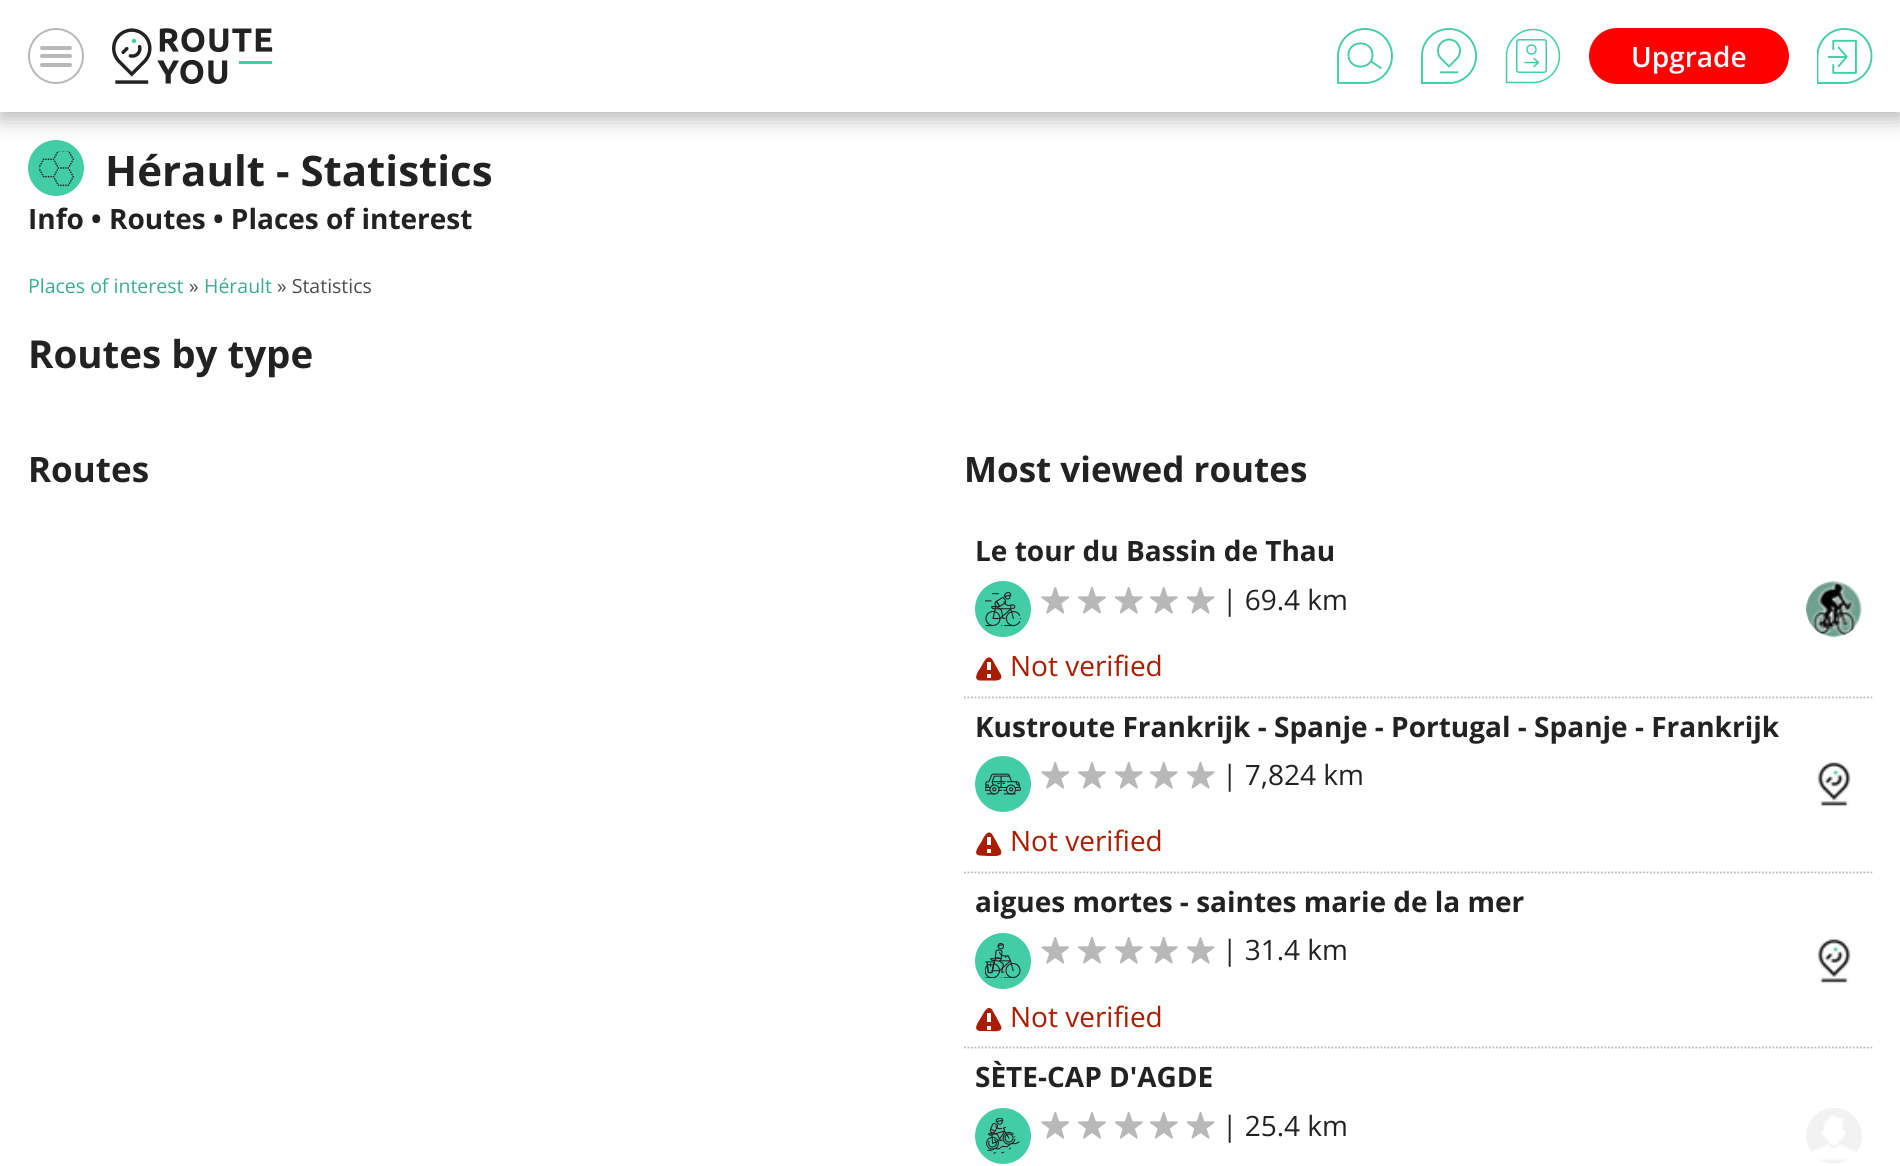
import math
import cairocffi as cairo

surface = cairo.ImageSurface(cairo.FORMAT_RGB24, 1900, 1166)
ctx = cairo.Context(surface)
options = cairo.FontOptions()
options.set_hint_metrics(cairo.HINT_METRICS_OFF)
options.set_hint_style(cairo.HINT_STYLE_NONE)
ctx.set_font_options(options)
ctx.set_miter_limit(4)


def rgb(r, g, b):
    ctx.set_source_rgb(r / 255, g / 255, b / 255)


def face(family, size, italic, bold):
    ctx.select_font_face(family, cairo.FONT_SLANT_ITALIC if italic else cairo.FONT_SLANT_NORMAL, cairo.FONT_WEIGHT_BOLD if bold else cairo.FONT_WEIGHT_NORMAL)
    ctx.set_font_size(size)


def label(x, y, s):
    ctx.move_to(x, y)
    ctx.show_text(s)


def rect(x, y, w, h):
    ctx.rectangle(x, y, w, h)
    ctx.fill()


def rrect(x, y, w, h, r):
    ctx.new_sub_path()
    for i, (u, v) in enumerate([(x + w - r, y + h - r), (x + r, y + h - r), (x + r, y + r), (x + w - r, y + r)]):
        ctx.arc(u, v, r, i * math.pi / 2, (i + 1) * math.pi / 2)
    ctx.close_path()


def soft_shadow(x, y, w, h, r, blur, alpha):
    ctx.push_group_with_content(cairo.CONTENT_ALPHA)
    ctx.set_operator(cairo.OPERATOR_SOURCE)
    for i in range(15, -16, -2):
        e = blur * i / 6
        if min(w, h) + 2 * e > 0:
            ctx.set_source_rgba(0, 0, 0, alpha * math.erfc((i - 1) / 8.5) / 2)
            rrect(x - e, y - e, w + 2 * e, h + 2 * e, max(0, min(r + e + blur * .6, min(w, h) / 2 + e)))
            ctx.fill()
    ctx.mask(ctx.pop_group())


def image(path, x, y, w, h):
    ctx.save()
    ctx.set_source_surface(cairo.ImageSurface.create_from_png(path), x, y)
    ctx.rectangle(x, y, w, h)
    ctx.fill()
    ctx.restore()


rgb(255, 255, 255)
ctx.paint()
rgb(66, 205, 167)
ctx.arc(56, 168, 28, 0, 2 * math.pi)
ctx.fill()
image('image3.png', 39, 151, 35, 36)
ctx.save()
ctx.rectangle(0, 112, 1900, 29)
ctx.clip()
rgb(184, 184, 184)
soft_shadow(0, 7, 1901, 112, 0, 10.5, 1)
ctx.restore()
ctx.arc(56, 56, 27, 0, 2 * math.pi)
rgb(184, 184, 184)
ctx.stroke()
rrect(40, 46, 32, 4, 2)
ctx.fill()
rrect(40, 54, 32, 4, 2)
ctx.fill()
rrect(40, 63, 32, 4, 2)
ctx.fill()
image('image0.png', 112, 28, 161, 56)
ctx.new_path()
ctx.move_to(1372.5, 55)
ctx.curve_to(1372.5, 70.5, 1348.5, 70.5, 1348.5, 55)
ctx.curve_to(1348.5, 39.5, 1372.5, 39.5, 1372.5, 55)
ctx.close_path()
ctx.move_to(1370.5, 61)
ctx.line_to(1381.5, 68.5)
ctx.move_to(1365, 83)
ctx.line_to(1338, 83)
ctx.line_to(1338, 56)
ctx.curve_to(1338, 41, 1350, 29, 1365, 29)
ctx.curve_to(1380, 29, 1392, 41, 1392, 56)
ctx.curve_to(1392, 71, 1380, 83, 1365, 83)
ctx.close_path()
rgb(66, 205, 167)
ctx.set_line_width(1.9)
ctx.stroke()
image('image1.png', 1421, 28, 56, 56)
ctx.new_path()
ctx.move_to(1533, 82.5)
ctx.line_to(1506.5, 82.5)
ctx.line_to(1506.5, 56)
ctx.curve_to(1506.5, 41.5, 1518.5, 29.5, 1533, 29.5)
ctx.curve_to(1547.5, 29.5, 1559.5, 41.5, 1559.5, 56)
ctx.curve_to(1559.5, 70.5, 1547.5, 82.5, 1533, 82.5)
ctx.close_path()
ctx.set_line_width(1.5)
ctx.stroke()
ctx.arc(1531.5, 49.5, 4.5, 0, 2 * math.pi)
ctx.stroke()
rrect(1516.75, 39.75, 29.5, 32.5, 2.25)
ctx.stroke()
ctx.new_path()
ctx.move_to(1525, 62.5)
ctx.line_to(1538.5, 62.5)
ctx.move_to(1534, 58.5)
ctx.line_to(1538.5, 62.5)
ctx.line_to(1534, 66.5)
ctx.set_line_cap(cairo.LINE_CAP_ROUND)
ctx.set_line_join(cairo.LINE_JOIN_ROUND)
ctx.stroke()
rgb(255, 0, 0)
rrect(1589, 28, 200, 56, 28)
ctx.fill()
face('Open Sans SemiBold', 28, 0, 0)
rgb(255, 255, 255)
label(1631, 67, 'Upgrade')
image('image2.png', 1817, 28, 56, 56)
face('Open Sans', 42, 0, 1)
rgb(34, 34, 34)
label(105, 186, 'Hérault - Statistics')
face('Open Sans', 28, 0, 1)
label(28, 229, 'Info • Routes • Places of interest')
face('Open Sans', 19.5, 0, 0)
rgb(56, 174, 142)
label(28, 293, 'Places of interest')
rgb(77, 77, 77)
label(189, 293, '»')
rgb(56, 174, 142)
label(204, 293, 'Hérault')
rgb(77, 77, 77)
label(277, 293, '» Statistics')
face('Open Sans', 38.5, 0, 1)
rgb(34, 34, 34)
label(28, 368, 'Routes by type')
face('Open Sans', 35, 0, 1)
label(28, 482, 'Routes')
label(964, 482, 'Most viewed routes')
ctx.new_path()
ctx.move_to(964, 697.5)
ctx.line_to(1872.5, 697.5)
rgb(184, 184, 184)
ctx.set_line_width(1.8)
ctx.set_line_cap(cairo.LINE_CAP_BUTT)
ctx.set_line_join(cairo.LINE_JOIN_MITER)
ctx.set_dash([1.75, 1.75])
ctx.stroke()
face('Open Sans', 28, 0, 1)
rgb(34, 34, 34)
label(975, 561, 'Le tour du Bassin de Thau')
rgb(66, 205, 167)
ctx.new_path()
ctx.arc(1003, 609, 28, 0, 2 * math.pi)
ctx.fill()
image('image4.png', 985, 592, 36, 35)
image('image5.png', 1041, 587, 28, 27)
image('image6.png', 1078, 587, 28, 27)
image('image7.png', 1115, 587, 28, 27)
image('image7.png', 1150, 587, 28, 27)
image('image8.png', 1187, 587, 28, 27)
face('Open Sans', 28, 0, 0)
rgb(34, 34, 34)
label(1222, 610, '| 69.4 km')
image('image9.png', 1806, 581, 56, 56)
rgb(170, 28, 0)
ctx.new_path()
ctx.move_to(981, 667)
ctx.curve_to(983, 663.5, 987, 653.5, 992, 659)
ctx.line_to(996.5, 667)
ctx.line_to(988.5, 680.5)
ctx.close_path()
ctx.fill()
ctx.new_path()
ctx.move_to(988.5, 680.5)
ctx.line_to(979.5, 680.5)
ctx.curve_to(972, 679, 979, 670, 981, 667)
ctx.line_to(996.5, 667)
ctx.close_path()
ctx.fill()
ctx.new_path()
ctx.move_to(996.5, 667)
ctx.line_to(1001, 675)
ctx.curve_to(1003.5, 682, 992.5, 680.5, 988.5, 680.5)
ctx.line_to(981, 667)
ctx.close_path()
ctx.fill()
rgb(255, 255, 255)
rect(987, 662, 4, 8)
rect(987, 674, 4, 4)
rgb(170, 28, 0)
label(1010, 676, 'Not verified')
ctx.new_path()
ctx.move_to(964, 872.5)
ctx.line_to(1872.5, 872.5)
rgb(184, 184, 184)
ctx.stroke()
face('Open Sans', 28, 0, 1)
rgb(34, 34, 34)
label(975, 737, 'Kustroute Frankrijk - Spanje - Portugal - Spanje - Frankrijk')
rgb(66, 205, 167)
ctx.new_path()
ctx.arc(1003, 784, 28, 0, 2 * math.pi)
ctx.fill()
image('image10.png', 985, 773, 36, 22)
image('image5.png', 1041, 762, 28, 27)
image('image6.png', 1078, 762, 28, 27)
image('image7.png', 1115, 762, 28, 27)
image('image7.png', 1150, 762, 28, 27)
image('image8.png', 1187, 762, 28, 27)
face('Open Sans', 28, 0, 0)
rgb(34, 34, 34)
label(1222, 785, '| 7,824 km')
image('image11.png', 1817, 761, 34, 46)
rgb(170, 28, 0)
ctx.new_path()
ctx.move_to(981, 842.5)
ctx.curve_to(983, 839, 987, 828.5, 992, 834)
ctx.line_to(996.5, 842)
ctx.line_to(988.5, 856)
ctx.close_path()
ctx.fill()
ctx.new_path()
ctx.move_to(988.5, 856)
ctx.line_to(979.5, 855.5)
ctx.curve_to(972, 854.5, 979, 845.5, 981, 842.5)
ctx.line_to(996.5, 842)
ctx.close_path()
ctx.fill()
ctx.save()
ctx.rectangle(975, 831, 28, 25)
ctx.clip()
ctx.new_path()
ctx.move_to(996.5, 842)
ctx.line_to(1001, 850.5)
ctx.curve_to(1003.5, 857.5, 992.5, 856, 988.5, 856)
ctx.line_to(981, 842.5)
ctx.close_path()
ctx.fill()
ctx.restore()
rgb(255, 255, 255)
rect(987, 837, 4, 8)
rect(987, 849, 4, 4)
rgb(170, 28, 0)
label(1010, 851, 'Not verified')
ctx.new_path()
ctx.move_to(964, 1047.5)
ctx.line_to(1872.5, 1047.5)
rgb(184, 184, 184)
ctx.stroke()
face('Open Sans', 28, 0, 1)
rgb(34, 34, 34)
label(975, 912, 'aigues mortes - saintes marie de la mer')
rgb(66, 205, 167)
ctx.new_path()
ctx.arc(1003, 961, 28, 0, 2 * math.pi)
ctx.fill()
image('image12.png', 985, 943, 36, 35)
image('image5.png', 1041, 937, 28, 27)
image('image6.png', 1078, 937, 28, 27)
image('image7.png', 1115, 937, 28, 27)
image('image7.png', 1150, 937, 28, 27)
image('image8.png', 1187, 937, 28, 27)
face('Open Sans', 28, 0, 0)
rgb(34, 34, 34)
label(1222, 960, '| 31.4 km')
image('image13.png', 1817, 938, 34, 46)
rgb(170, 28, 0)
ctx.new_path()
ctx.move_to(981, 1017.5)
ctx.curve_to(983, 1014.5, 987, 1004, 992, 1009.5)
ctx.line_to(996.5, 1017.5)
ctx.line_to(988.5, 1031)
ctx.close_path()
ctx.fill()
ctx.new_path()
ctx.move_to(988.5, 1031)
ctx.line_to(979.5, 1031)
ctx.curve_to(972, 1029.5, 979, 1021, 981, 1017.5)
ctx.line_to(996.5, 1017.5)
ctx.close_path()
ctx.fill()
ctx.new_path()
ctx.move_to(996.5, 1017.5)
ctx.line_to(1001, 1026)
ctx.curve_to(1003.5, 1033, 992.5, 1031, 988.5, 1031)
ctx.line_to(981, 1017.5)
ctx.close_path()
ctx.fill()
rgb(255, 255, 255)
rect(987, 1013, 4, 9)
rect(987, 1026, 4, 4)
rgb(170, 28, 0)
label(1010, 1027, 'Not verified')
face('Open Sans', 28, 0, 1)
rgb(34, 34, 34)
label(975, 1087, 'SÈTE-CAP D\'AGDE')
rgb(66, 205, 167)
ctx.new_path()
ctx.arc(1003, 1136, 28, 0, 2 * math.pi)
ctx.fill()
image('image14.png', 986, 1118, 34, 36)
image('image5.png', 1041, 1112, 28, 27)
image('image6.png', 1078, 1112, 28, 27)
image('image7.png', 1115, 1112, 28, 27)
image('image7.png', 1150, 1112, 28, 27)
image('image8.png', 1187, 1112, 28, 27)
face('Open Sans', 28, 0, 0)
rgb(34, 34, 34)
label(1222, 1136, '| 25.4 km')
image('image15.png', 1806, 1108, 56, 56)
surface.write_to_png('render.png')
